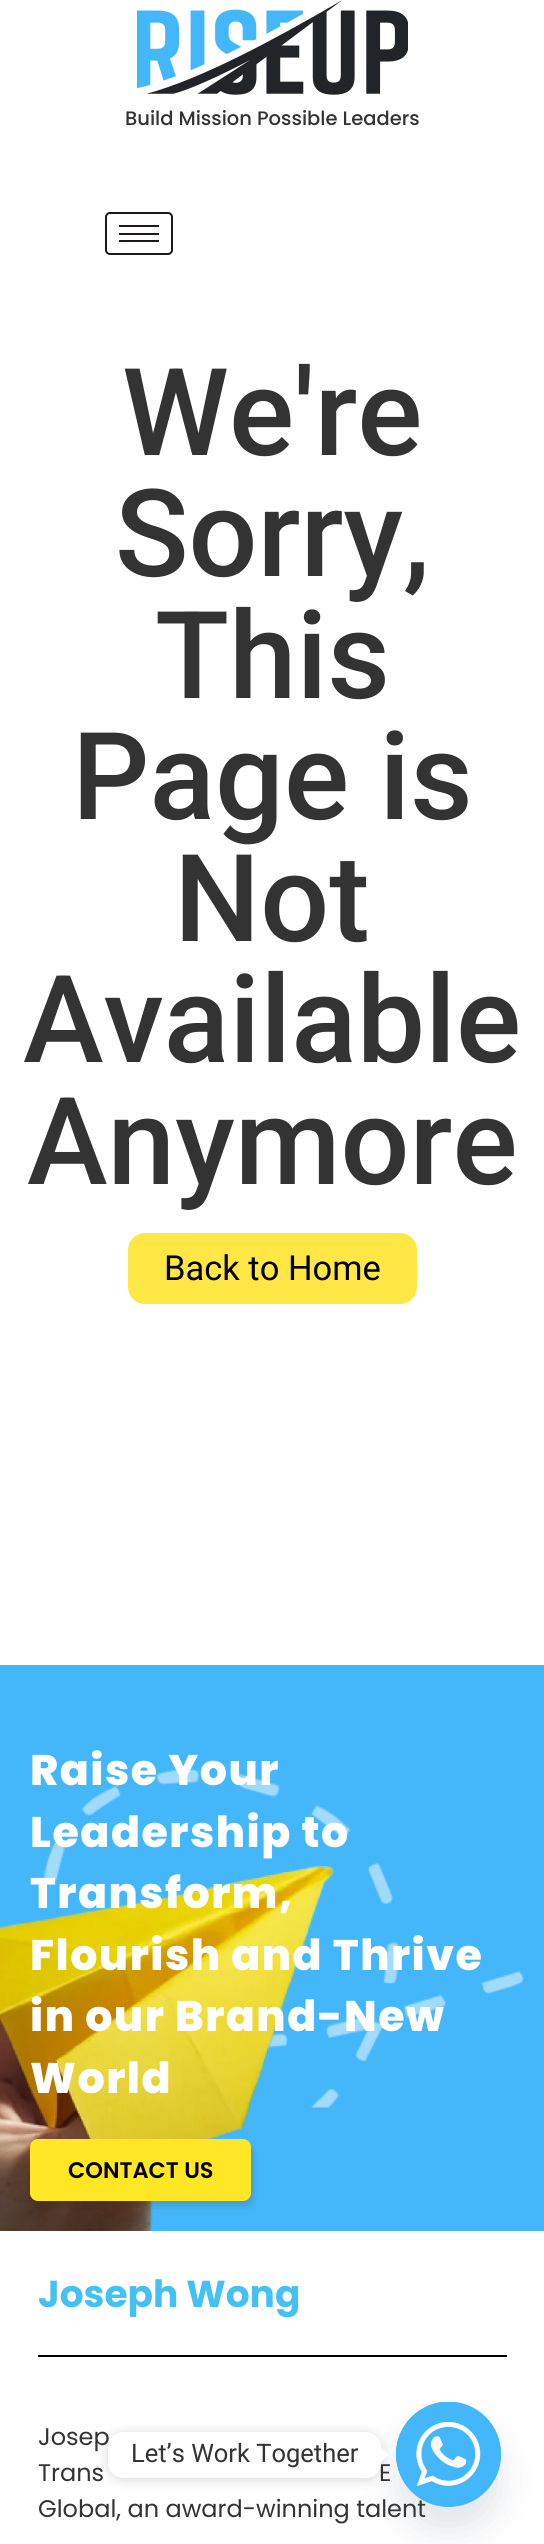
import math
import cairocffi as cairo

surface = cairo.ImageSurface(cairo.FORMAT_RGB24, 544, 2544)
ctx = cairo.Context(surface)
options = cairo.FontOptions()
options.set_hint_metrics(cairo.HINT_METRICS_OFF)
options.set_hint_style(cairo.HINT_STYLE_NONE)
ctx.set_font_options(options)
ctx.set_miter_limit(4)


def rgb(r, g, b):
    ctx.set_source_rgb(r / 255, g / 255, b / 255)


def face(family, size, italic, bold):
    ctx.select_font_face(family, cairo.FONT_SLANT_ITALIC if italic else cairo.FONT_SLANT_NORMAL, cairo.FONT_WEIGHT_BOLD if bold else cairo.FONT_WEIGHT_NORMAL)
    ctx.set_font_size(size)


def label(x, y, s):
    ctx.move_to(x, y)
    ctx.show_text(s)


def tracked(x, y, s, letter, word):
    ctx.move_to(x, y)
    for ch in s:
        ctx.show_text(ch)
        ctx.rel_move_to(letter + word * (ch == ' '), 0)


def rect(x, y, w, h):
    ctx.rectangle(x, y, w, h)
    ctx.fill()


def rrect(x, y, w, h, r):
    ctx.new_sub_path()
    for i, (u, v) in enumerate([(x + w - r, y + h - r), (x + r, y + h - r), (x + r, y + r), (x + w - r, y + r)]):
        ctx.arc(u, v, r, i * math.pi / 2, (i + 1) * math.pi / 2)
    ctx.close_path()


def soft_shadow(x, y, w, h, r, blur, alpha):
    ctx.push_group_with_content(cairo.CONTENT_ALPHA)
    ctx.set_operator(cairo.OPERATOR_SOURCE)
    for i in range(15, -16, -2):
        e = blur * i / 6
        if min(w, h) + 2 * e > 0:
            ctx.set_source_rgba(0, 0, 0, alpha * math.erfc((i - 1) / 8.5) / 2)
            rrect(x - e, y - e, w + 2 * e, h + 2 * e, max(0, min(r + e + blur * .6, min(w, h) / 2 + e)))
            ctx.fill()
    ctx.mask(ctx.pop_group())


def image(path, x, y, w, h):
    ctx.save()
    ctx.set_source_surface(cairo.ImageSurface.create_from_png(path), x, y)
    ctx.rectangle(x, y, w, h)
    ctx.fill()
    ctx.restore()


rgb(255, 255, 255)
ctx.paint()
image('image0.png', 137, 0, 271, 95)
face('Poppins Medium', 19.5, 0, 0)
rgb(51, 51, 51)
label(125, 125, 'Build Mission Possible Leaders')
rrect(106, 213, 66, 41, 4)
rgb(29, 24, 26)
ctx.stroke()
rect(119, 225, 40, 2)
rect(119, 233, 40, 2)
rect(119, 240, 40, 2)
face('Roboto Medium', 121.5, 0, 0)
rgb(51, 51, 51)
label(122, 455, 'We\'re')
label(115, 576, 'Sorry,')
label(155, 698, 'This')
label(72, 819, 'Page is')
label(174, 941, 'Not')
label(23, 1062, 'Available')
label(27, 1184, 'Anymore')
rgb(255, 232, 69)
rrect(128, 1233, 289, 71, 17)
ctx.fill()
face('Roboto', 34.5, 0, 0)
rgb(2, 1, 1)
label(164, 1280, 'Back to Home')
rgb(68, 183, 251)
rect(0, 1665, 544, 566)
image('image1.png', 43, 1768, 481, 340)
face('Poppins ExtraBold', 42.75, 0, 0)
rgb(255, 255, 255)
tracked(30, 1785, 'Raise Your', 1.5, 0)
tracked(30, 1847, 'Leadership to', 1.5, 0)
image('image2.png', 0, 1865, 334, 366)
tracked(30, 1908, 'Transform,', 1.5, 0)
tracked(30, 1970, 'Flourish and Thrive', 1.5, 0)
tracked(30, 2031, 'in our Brand-New', 1.5, 0)
tracked(30, 2093, 'World', 1.5, 0)
rgb(43, 47, 22)
soft_shadow(33, 2145, 221, 62, 8, 3, 0.17)
rgb(255, 231, 37)
rrect(30, 2139, 221, 62, 8)
ctx.fill()
face('Poppins SemiBold', 22.5, 0, 0)
rgb(2, 1, 1)
label(68, 2178, 'CONTACT US')
face('Poppins', 37.5, 0, 1)
rgb(68, 193, 242)
label(38, 2307, 'Joseph Wong')
rgb(0, 0, 0)
rect(38, 2355, 469, 2)
face('Poppins', 24, 0, 0)
rgb(51, 51, 51)
label(38, 2445, 'Josep')
label(38, 2481, 'Trans')
label(379, 2481, 'E')
label(38, 2517, 'Global, an award-winning talent')
rgb(73, 104, 126)
soft_shadow(396, 2426, 105, 105, 52.5, 18, 0.16)
rgb(68, 183, 251)
ctx.arc(448.5, 2454.5, 52.5, 0, 2 * math.pi)
ctx.fill()
image('image3.png', 396, 2402, 105, 105)
rgb(0, 0, 0)
soft_shadow(108, 2433, 273, 47, 15, 6, 0.15)
rgb(255, 255, 255)
rrect(108, 2432, 273, 46, 15)
ctx.fill()
face('Roboto', 25.5, 0, 0)
rgb(51, 51, 51)
label(131, 2462, 'Let’s Work Together')
rgb(255, 255, 255)
ctx.new_path()
ctx.move_to(381, 2462)
ctx.line_to(381, 2447)
ctx.line_to(388.5, 2455)
ctx.close_path()
ctx.fill()
surface.write_to_png('render.png')
